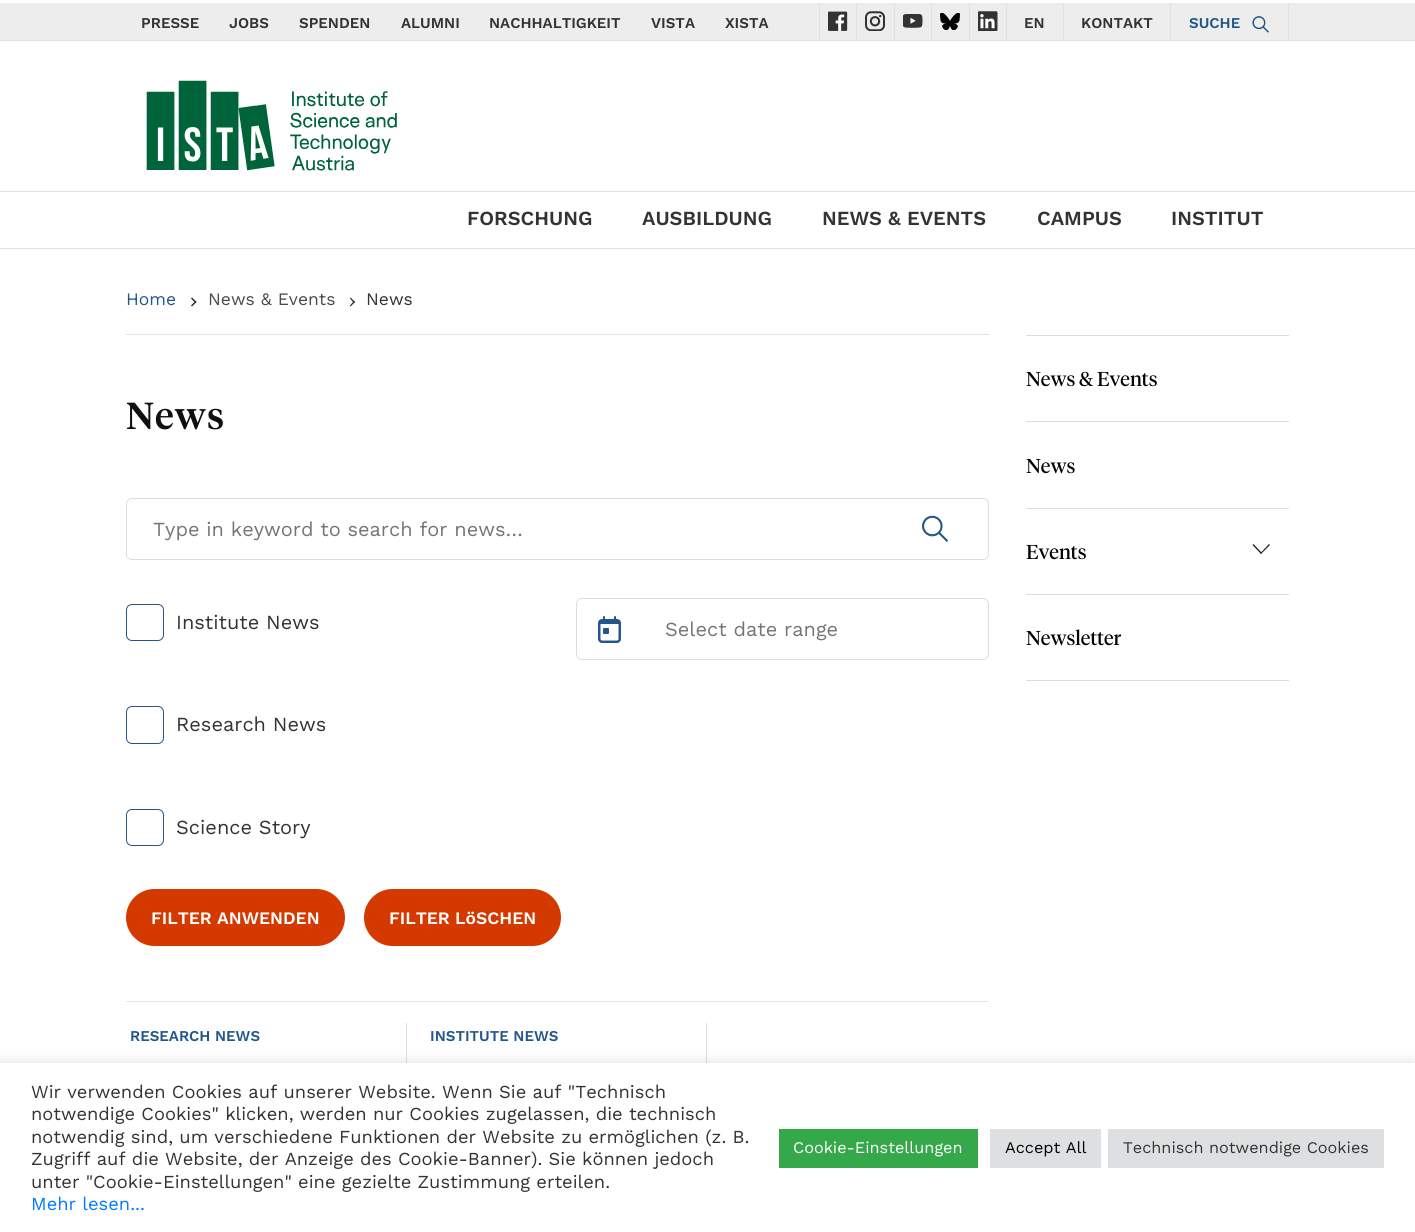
import math
import cairocffi as cairo

surface = cairo.ImageSurface(cairo.FORMAT_RGB24, 1415, 1232)
ctx = cairo.Context(surface)
options = cairo.FontOptions()
options.set_hint_metrics(cairo.HINT_METRICS_OFF)
options.set_hint_style(cairo.HINT_STYLE_NONE)
ctx.set_font_options(options)
ctx.set_miter_limit(4)


def rgb(r, g, b):
    ctx.set_source_rgb(r / 255, g / 255, b / 255)


def face(family, size, italic, bold):
    ctx.select_font_face(family, cairo.FONT_SLANT_ITALIC if italic else cairo.FONT_SLANT_NORMAL, cairo.FONT_WEIGHT_BOLD if bold else cairo.FONT_WEIGHT_NORMAL)
    ctx.set_font_size(size)


def label(x, y, s):
    ctx.move_to(x, y)
    ctx.show_text(s)


def tracked(x, y, s, letter, word):
    ctx.move_to(x, y)
    for ch in s:
        ctx.show_text(ch)
        ctx.rel_move_to(letter + word * (ch == ' '), 0)


def rect(x, y, w, h):
    ctx.rectangle(x, y, w, h)
    ctx.fill()


def rrect(x, y, w, h, r):
    ctx.new_sub_path()
    for i, (u, v) in enumerate([(x + w - r, y + h - r), (x + r, y + h - r), (x + r, y + r), (x + w - r, y + r)]):
        ctx.arc(u, v, r, i * math.pi / 2, (i + 1) * math.pi / 2)
    ctx.close_path()


def soft_shadow(x, y, w, h, r, blur, alpha):
    ctx.push_group_with_content(cairo.CONTENT_ALPHA)
    ctx.set_operator(cairo.OPERATOR_SOURCE)
    for i in range(15, -16, -2):
        e = blur * i / 6
        if min(w, h) + 2 * e > 0:
            ctx.set_source_rgba(0, 0, 0, alpha * math.erfc((i - 1) / 8.5) / 2)
            rrect(x - e, y - e, w + 2 * e, h + 2 * e, max(0, min(r + e + blur * .6, min(w, h) / 2 + e)))
            ctx.fill()
    ctx.mask(ctx.pop_group())


def image(path, x, y, w, h):
    ctx.save()
    ctx.set_source_surface(cairo.ImageSurface.create_from_png(path), x, y)
    ctx.rectangle(x, y, w, h)
    ctx.fill()
    ctx.restore()


rgb(255, 255, 255)
ctx.paint()
rgb(237, 237, 237)
rect(0, 3, 1415, 37)
rgb(222, 226, 230)
rect(0, 40, 1415, 1)
face('Work Sans SemiBold', 15, 0, 0)
rgb(51, 51, 51)
label(141, 28, 'PRESSE')
label(229, 28, 'JOBS')
label(299, 28, 'SPENDEN')
label(401, 28, 'ALUMNI')
label(489, 28, 'NACHHALTIGKEIT')
label(651, 28, 'VISTA')
label(725, 28, 'XISTA')
rgb(222, 226, 230)
rect(819, 3, 1, 37)
image('image0.png', 828, 11, 20, 20)
rect(856, 3, 1, 37)
image('image1.png', 865, 11, 20, 20)
rect(894, 3, 1, 37)
image('image2.png', 903, 14, 20, 14)
rect(931, 3, 1, 37)
image('image3.png', 940, 13, 20, 17)
rect(969, 3, 1, 37)
image('image4.png', 978, 11, 20, 20)
rect(1006, 3, 1, 37)
rgb(51, 51, 51)
label(1024, 28, 'EN')
rgb(222, 226, 230)
rect(1170, 3, 1, 37)
rect(1063, 3, 1, 37)
rgb(51, 51, 51)
label(1081, 28, 'KONTAKT')
rgb(222, 226, 230)
rect(1288, 3, 1, 37)
rgb(35, 87, 137)
label(1189, 28, 'SUCHE')
image('image5.png', 1252, 16, 17, 17)
image('image6.png', 146, 80, 251, 91)
rgb(222, 226, 230)
rect(0, 191, 1415, 1)
rect(0, 248, 1415, 1)
face('Work Sans SemiBold', 20, 0, 0)
rgb(51, 51, 51)
label(467, 225, 'FORSCHUNG')
label(642, 225, 'AUSBILDUNG')
label(822, 225, 'NEWS & EVENTS')
label(1037, 225, 'CAMPUS')
label(1171, 225, 'INSTITUT')
rgb(222, 226, 230)
rect(126, 334, 863, 1)
face('Work Sans', 17.5, 0, 0)
rgb(35, 87, 137)
label(126, 305, 'Home')
rgb(34, 34, 34)
ctx.new_path()
ctx.move_to(191, 298.5)
ctx.line_to(192, 297.5)
ctx.line_to(196.5, 302)
ctx.line_to(195.5, 303)
ctx.close_path()
ctx.fill()
ctx.new_path()
ctx.move_to(191, 305.5)
ctx.line_to(195.5, 301)
ctx.line_to(196.5, 302)
ctx.line_to(192, 306.5)
ctx.close_path()
ctx.fill()
rgb(74, 74, 74)
label(208, 305, 'News & Events')
rgb(34, 34, 34)
ctx.new_path()
ctx.move_to(350, 298.5)
ctx.line_to(350.5, 297.5)
ctx.line_to(355, 302)
ctx.line_to(354, 303)
ctx.close_path()
ctx.fill()
ctx.new_path()
ctx.move_to(350, 305.5)
ctx.line_to(354, 301)
ctx.line_to(355, 302)
ctx.line_to(350.5, 306.5)
ctx.close_path()
ctx.fill()
rgb(51, 51, 51)
label(366, 305, 'News')
face('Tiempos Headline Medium', 37.5, 0, 0)
rgb(16, 16, 16)
tracked(126, 429, 'News', 1, 0)
image('image7.png', 922, 515, 27, 27)
rrect(126.5, 498.5, 862, 61, 5.5)
rgb(221, 221, 221)
ctx.set_line_width(1)
ctx.stroke()
face('Work Sans', 20, 0, 0)
rgb(117, 117, 117)
label(153, 536, 'Type in keyword to search for news…')
rrect(126.5, 604.5, 37, 36, 5.5)
rgb(35, 87, 137)
ctx.stroke()
rgb(51, 51, 51)
label(176, 629, 'Institute News')
rrect(126.5, 706.5, 37, 37, 5.5)
rgb(35, 87, 137)
ctx.stroke()
rgb(51, 51, 51)
label(176, 731, 'Research News')
rrect(126.5, 809.5, 37, 36, 5.5)
rgb(35, 87, 137)
ctx.stroke()
rgb(51, 51, 51)
label(176, 834, 'Science Story')
rrect(599.25, 620.25, 20.5, 21.5, 2.75)
rgb(35, 87, 137)
ctx.set_line_width(2.5)
ctx.stroke()
rrect(603, 628, 6, 6, 1)
ctx.fill()
rrect(603, 616, 2, 4, 1)
ctx.fill()
rrect(614, 616, 2, 4, 1)
ctx.fill()
rect(599, 620, 21, 4)
rrect(576.5, 598.5, 412, 61, 5.5)
rgb(221, 221, 221)
ctx.set_line_width(1)
ctx.stroke()
rgb(117, 117, 117)
label(665, 636, 'Select date range')
rgb(212, 57, 0)
rrect(126, 889, 219, 57, 28.5)
ctx.fill()
face('Work Sans SemiBold', 17.5, 0, 0)
rgb(255, 255, 255)
label(151, 924, 'FILTER ANWENDEN')
rgb(212, 57, 0)
rrect(364, 889, 197, 57, 28.5)
ctx.fill()
rgb(255, 255, 255)
label(389, 924, 'FILTER LöSCHEN')
rgb(230, 230, 230)
rect(126, 1001, 863, 1)
rgb(221, 221, 221)
rect(406, 1023, 1, 40)
face('Work Sans SemiBold', 15, 0, 0)
rgb(35, 87, 137)
label(130, 1041, 'RESEARCH NEWS')
rgb(221, 221, 221)
rect(706, 1023, 1, 40)
rgb(35, 87, 137)
label(430, 1041, 'INSTITUTE NEWS')
rgb(221, 221, 221)
rect(1026, 335, 263, 1)
rect(1026, 421, 263, 1)
face('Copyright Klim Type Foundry', 20, 0, 0)
rgb(0, 0, 0)
label(1026, 386, 'News & Events')
rgb(221, 221, 221)
rect(1026, 508, 263, 1)
rgb(0, 0, 0)
label(1026, 473, 'News')
rgb(221, 221, 221)
rect(1026, 594, 263, 1)
rgb(0, 0, 0)
label(1026, 559, 'Events')
rgb(34, 34, 34)
ctx.new_path()
ctx.move_to(1269, 544)
ctx.line_to(1270, 545)
ctx.line_to(1261, 554)
ctx.line_to(1260.5, 553)
ctx.close_path()
ctx.fill()
ctx.new_path()
ctx.move_to(1253.5, 544)
ctx.line_to(1262, 553)
ctx.line_to(1261, 554)
ctx.line_to(1252.5, 545)
ctx.close_path()
ctx.fill()
rgb(221, 221, 221)
rect(1026, 680, 263, 1)
rgb(0, 0, 0)
label(1026, 645, 'Newsletter')
rgb(172, 171, 171)
soft_shadow(0, 1061, 1415, 170, 0, 6, 0.3)
rgb(255, 255, 255)
rect(0, 1063, 1415, 169)
face('Work Sans', 18.35, 0, 0)
rgb(51, 51, 51)
label(31, 1098, 'Wir verwenden Cookies auf unserer Website. Wenn Sie auf "Technisch')
label(31, 1120, 'notwendige Cookies" klicken, werden nur Cookies zugelassen, die technisch')
label(31, 1143, 'notwendig sind, um verschiedene Funktionen der Website zu ermöglichen (z. B.')
label(31, 1165, 'Zugriff auf die Website, der Anzeige des Cookie-Banner). Sie können jedoch')
label(31, 1188, 'unter "Cookie-Einstellungen" eine gezielte Zustimmung erteilen.')
rgb(0, 123, 255)
label(31, 1210, 'Mehr lesen...')
rgb(53, 169, 74)
rect(779, 1129, 199, 39)
face('Work Sans', 16.25, 0, 0)
rgb(255, 255, 255)
label(793, 1153, 'Cookie-Einstellungen')
rgb(222, 223, 224)
rect(990, 1129, 111, 39)
rgb(0, 0, 0)
label(1005, 1153, 'Accept All')
rgb(222, 223, 224)
rect(1108, 1129, 276, 39)
rgb(51, 51, 51)
label(1123, 1153, 'Technisch notwendige Cookies')
surface.write_to_png('render.png')
